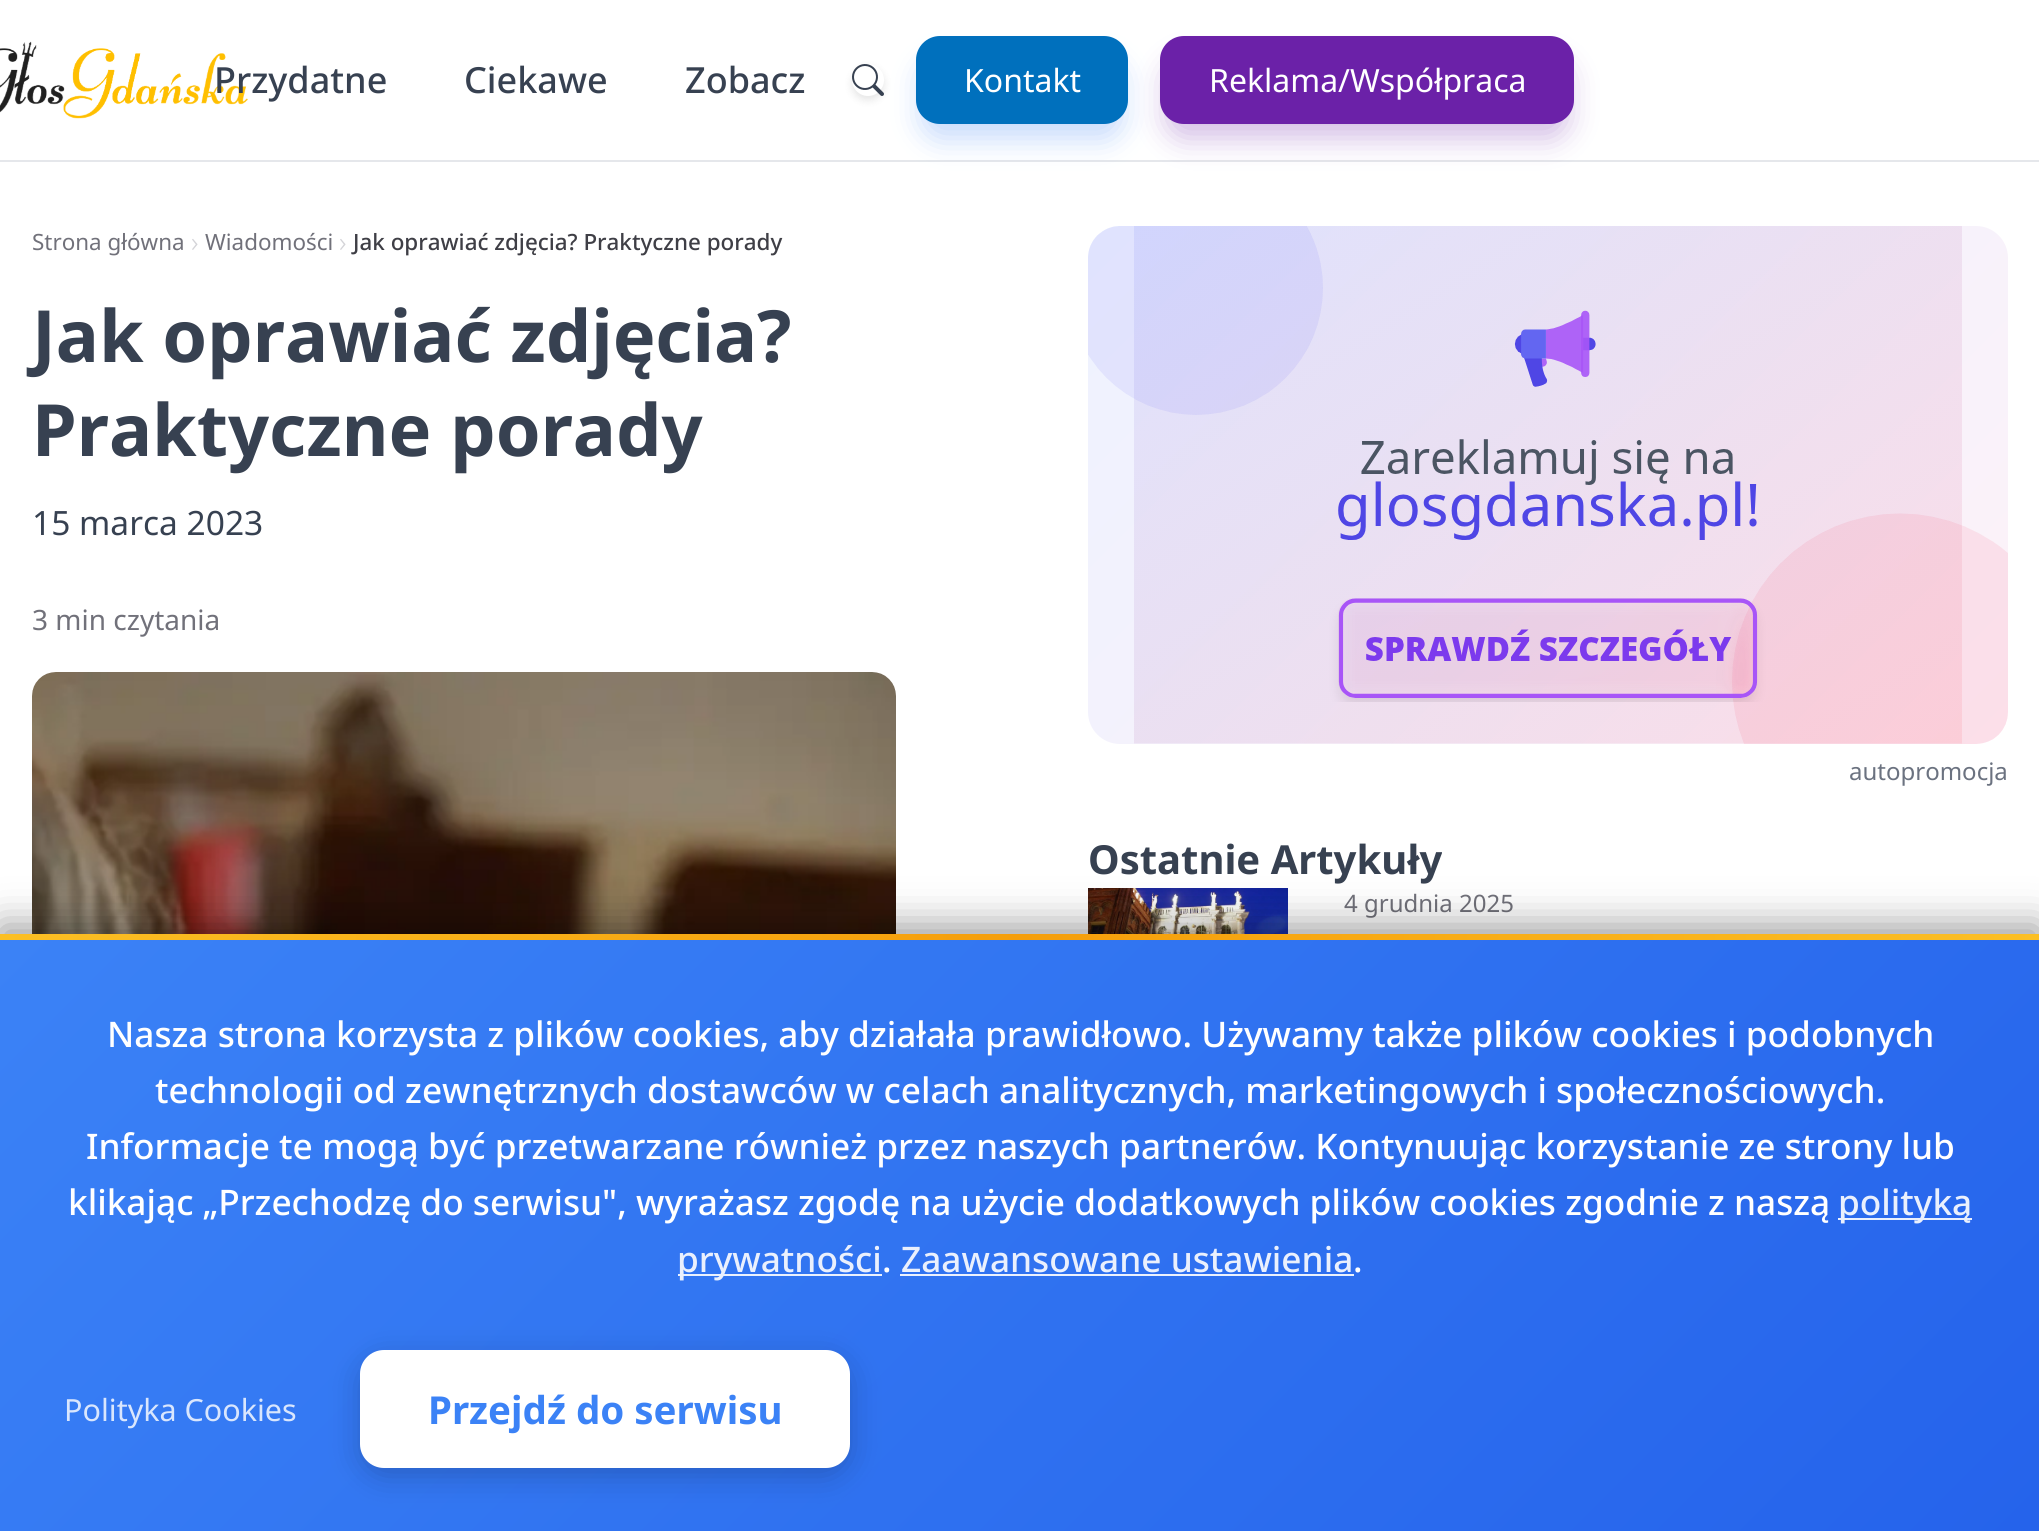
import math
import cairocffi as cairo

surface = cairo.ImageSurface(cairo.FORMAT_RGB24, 2039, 1531)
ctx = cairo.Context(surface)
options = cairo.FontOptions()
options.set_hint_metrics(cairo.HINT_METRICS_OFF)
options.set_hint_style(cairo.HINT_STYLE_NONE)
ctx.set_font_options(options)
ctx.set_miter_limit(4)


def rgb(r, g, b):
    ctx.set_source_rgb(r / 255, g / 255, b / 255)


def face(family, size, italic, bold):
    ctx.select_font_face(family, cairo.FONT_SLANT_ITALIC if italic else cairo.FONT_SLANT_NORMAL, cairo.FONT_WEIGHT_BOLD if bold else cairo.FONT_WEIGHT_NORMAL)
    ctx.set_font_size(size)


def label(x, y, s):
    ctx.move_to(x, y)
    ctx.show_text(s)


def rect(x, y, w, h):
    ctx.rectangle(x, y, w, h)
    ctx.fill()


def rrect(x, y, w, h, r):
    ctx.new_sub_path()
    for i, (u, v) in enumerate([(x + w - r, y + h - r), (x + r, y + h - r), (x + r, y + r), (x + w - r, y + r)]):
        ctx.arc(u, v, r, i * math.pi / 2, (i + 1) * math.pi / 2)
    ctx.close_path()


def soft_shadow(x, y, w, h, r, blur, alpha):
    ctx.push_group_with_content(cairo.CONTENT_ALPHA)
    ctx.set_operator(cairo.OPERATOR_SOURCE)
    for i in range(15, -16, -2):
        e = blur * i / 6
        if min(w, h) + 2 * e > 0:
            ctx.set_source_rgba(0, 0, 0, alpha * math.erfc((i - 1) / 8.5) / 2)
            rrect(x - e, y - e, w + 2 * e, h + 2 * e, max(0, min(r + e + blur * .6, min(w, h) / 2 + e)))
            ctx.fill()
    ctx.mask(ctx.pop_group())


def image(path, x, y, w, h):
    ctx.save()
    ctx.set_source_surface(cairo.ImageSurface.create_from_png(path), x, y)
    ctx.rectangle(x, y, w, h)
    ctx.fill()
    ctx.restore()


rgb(255, 255, 255)
ctx.paint()
rgb(229, 231, 235)
rect(0, 160, 2039, 2)
image('image0.png', 0, 41, 248, 78)
face('Noto Sans Medium', 36, 0, 0)
rgb(55, 65, 81)
label(214, 93, 'Przydatne')
label(464, 93, 'Ciekawe')
label(685, 93, 'Zobacz')
rgb(0, 0, 0)
soft_shadow(852, 68, 32, 32, 16, 4, 0.1)
rgb(255, 255, 255)
ctx.arc(868, 80, 16, 0, 2 * math.pi)
ctx.fill()
rgb(59, 130, 246)
soft_shadow(922, 62, 200, 76, 18, 15, 0.3)
image('image1.png', 852, 64, 32, 32)
rgb(0, 112, 189)
rrect(916, 36, 212, 88, 24)
ctx.fill()
face('Noto Sans', 32, 0, 0)
rgb(255, 255, 255)
label(964, 92, 'Kontakt')
rgb(107, 33, 168)
soft_shadow(1166, 62, 402, 76, 18, 15, 0.3)
rgb(107, 33, 168)
rrect(1160, 36, 414, 88, 24)
ctx.fill()
rgb(255, 255, 255)
label(1209, 92, 'Reklama/Współpraca')
face('Noto Sans', 22.4, 0, 0)
rgb(113, 113, 122)
label(32, 250, 'Strona główna')
face('Noto Sans Light', 28, 0, 0)
rgb(212, 212, 216)
label(191, 252, '›')
face('Noto Sans', 22.4, 0, 0)
rgb(113, 113, 122)
label(205, 250, 'Wiadomości')
face('Noto Sans Light', 28, 0, 0)
rgb(212, 212, 216)
label(339, 252, '›')
face('Noto Sans Medium', 22.4, 0, 0)
rgb(63, 63, 70)
label(353, 250, 'Jak oprawiać zdjęcia? Praktyczne porady')
face('Noto Sans', 72, 0, 1)
rgb(55, 65, 81)
label(32, 362, 'Jak oprawiać zdjęcia?')
label(32, 456, 'Praktyczne porady')
face('Noto Sans', 33.5, 0, 0)
label(32, 535, '15 marca 2023')
face('Noto Sans', 28, 0, 0)
rgb(113, 113, 122)
label(32, 630, '3 min czytania')
image('image2.png', 32, 672, 864, 262)
gradient = cairo.LinearGradient(1189, 126, 1908, 845)
gradient.add_color_stop_rgba(0, 0.933, 0.949, 1, 1)
gradient.add_color_stop_rgba(1, 0.992, 0.949, 0.973, 1)
ctx.set_source(gradient)
rrect(1088, 226, 920, 518, 32)
ctx.fill()
image('image3.png', 1088, 226, 920, 518)
face('Noto Sans', 24, 0, 0)
rgb(107, 114, 128)
label(1849, 780, 'autopromocja')
face('Noto Sans', 40, 0, 1)
rgb(55, 65, 81)
label(1088, 874, 'Ostatnie Artykuły')
image('image4.png', 1088, 888, 200, 46)
face('Noto Sans', 24, 0, 0)
rgb(113, 113, 122)
label(1344, 912, '4 grudnia 2025')
rgb(0, 0, 0)
soft_shadow(0, 926, 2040, 598, 0, 20, 0.4)
gradient = cairo.LinearGradient(362, 578, 1678, 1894)
gradient.add_color_stop_rgba(0, 0.231, 0.51, 0.965, 1)
gradient.add_color_stop_rgba(1, 0.145, 0.388, 0.922, 1)
ctx.set_source(gradient)
rect(0, 940, 2039, 591)
gradient = cairo.LinearGradient(0, 937, 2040, 937)
gradient.add_color_stop_rgba(0, 0.984, 0.749, 0.141, 1)
gradient.add_color_stop_rgba(0.5, 0.961, 0.62, 0.043, 1)
gradient.add_color_stop_rgba(1, 0.984, 0.749, 0.141, 1)
ctx.set_source(gradient)
rect(0, 934, 2039, 6)
face('Noto Sans Medium', 35.2, 0, 0)
rgb(255, 255, 255)
label(107, 1047, 'Nasza strona korzysta z plików cookies, aby działała prawidłowo. Używamy także plików cookies i podobnych')
label(155, 1103, 'technologii od zewnętrznych dostawców w celach analitycznych, marketingowych i społecznościowych.')
label(86, 1159, 'Informacje te mogą być przetwarzane również przez naszych partnerów. Kontynuując korzystanie ze strony lub')
label(68, 1215, 'klikając „Przechodzę do serwisu", wyrażasz zgodę na użycie dodatkowych plików cookies zgodnie z naszą')
rgb(234, 240, 253)
rect(1838, 1218, 134, 2)
label(1838, 1215, 'polityką')
rgb(234, 241, 254)
rect(678, 1274, 204, 2)
rgb(234, 240, 253)
label(677, 1272, 'prywatności')
rgb(255, 255, 255)
label(882, 1272, '.')
rgb(234, 240, 253)
label(901, 1272, 'Zaawansowane ustawienia')
ctx.set_source_rgba(1, 1, 1, 0.9)
rect(900, 1274, 454, 2)
rgb(255, 255, 255)
label(1353, 1272, '.')
face('Noto Sans', 30.5, 0, 0)
rgb(217, 230, 253)
label(64, 1421, 'Polityka Cookies')
rgb(0, 0, 0)
soft_shadow(360, 1358, 490, 118, 24, 15, 0.2)
rgb(255, 255, 255)
rrect(362, 1352, 486, 114, 22)
ctx.fill_preserve()
ctx.set_line_width(4)
ctx.stroke()
face('Noto Sans', 38.5, 0, 1)
rgb(59, 130, 246)
label(428, 1424, 'Przejdź do serwisu')
surface.write_to_png('render.png')
